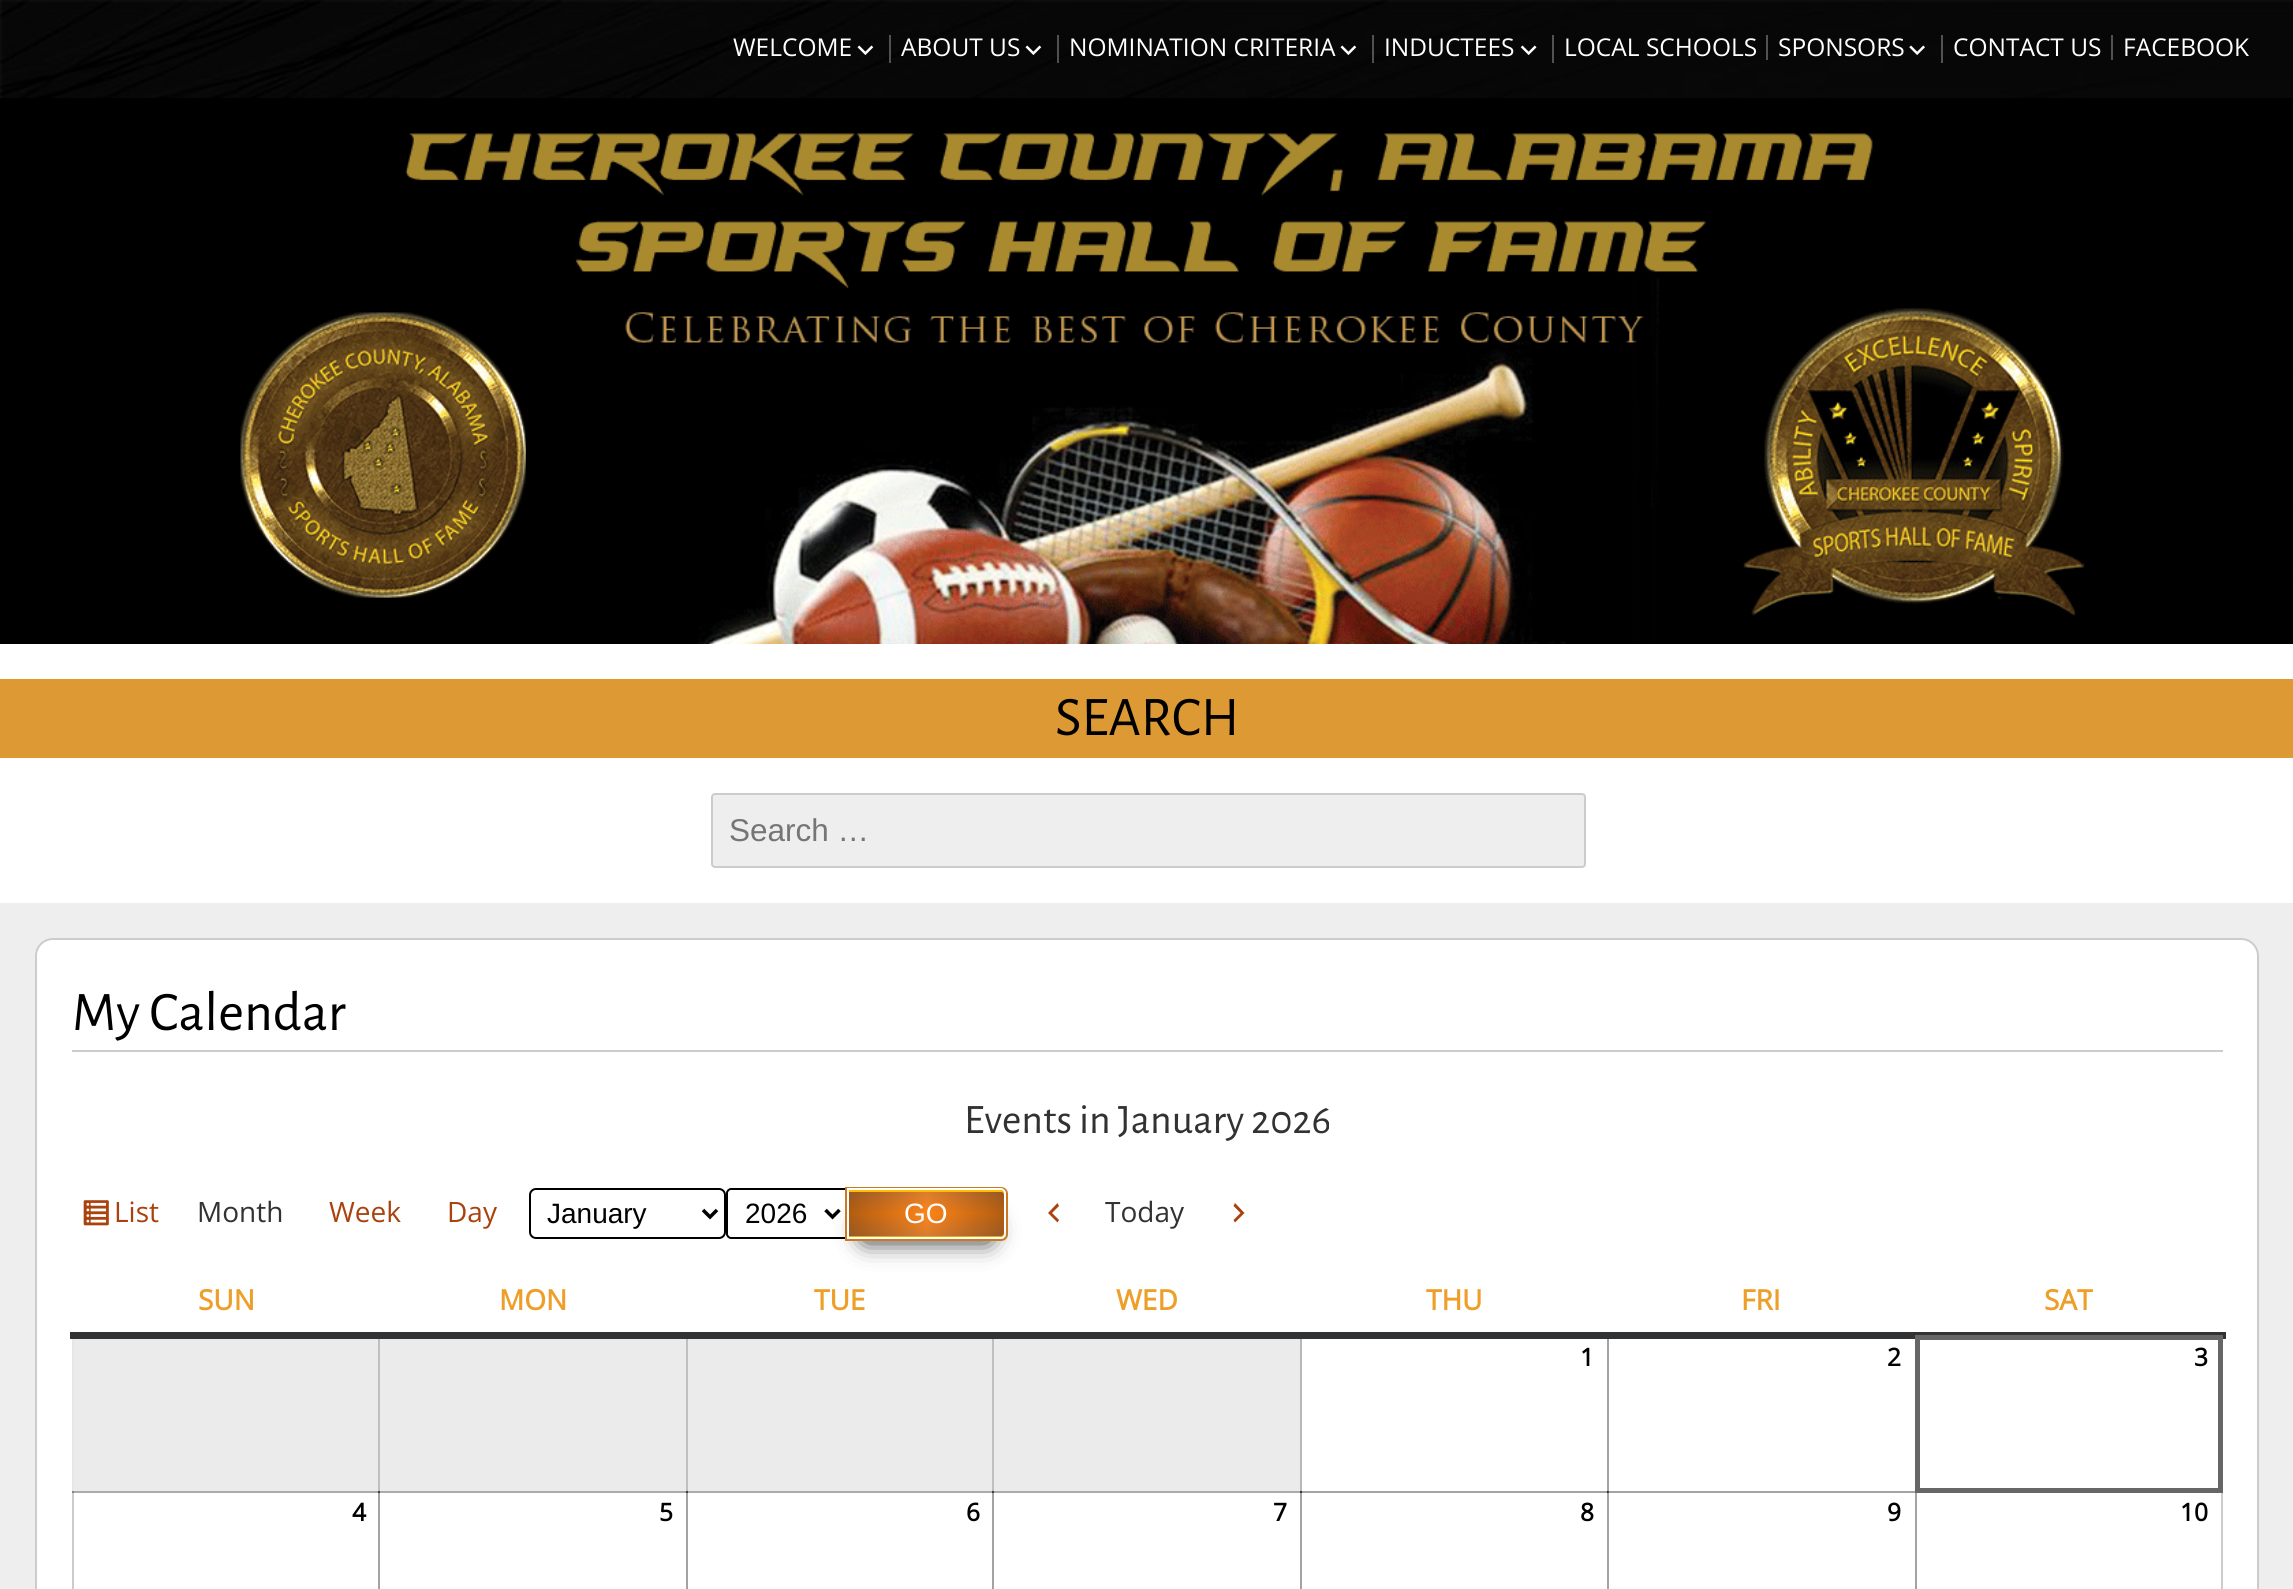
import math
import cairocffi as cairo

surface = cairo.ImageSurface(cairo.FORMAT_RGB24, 2293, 1589)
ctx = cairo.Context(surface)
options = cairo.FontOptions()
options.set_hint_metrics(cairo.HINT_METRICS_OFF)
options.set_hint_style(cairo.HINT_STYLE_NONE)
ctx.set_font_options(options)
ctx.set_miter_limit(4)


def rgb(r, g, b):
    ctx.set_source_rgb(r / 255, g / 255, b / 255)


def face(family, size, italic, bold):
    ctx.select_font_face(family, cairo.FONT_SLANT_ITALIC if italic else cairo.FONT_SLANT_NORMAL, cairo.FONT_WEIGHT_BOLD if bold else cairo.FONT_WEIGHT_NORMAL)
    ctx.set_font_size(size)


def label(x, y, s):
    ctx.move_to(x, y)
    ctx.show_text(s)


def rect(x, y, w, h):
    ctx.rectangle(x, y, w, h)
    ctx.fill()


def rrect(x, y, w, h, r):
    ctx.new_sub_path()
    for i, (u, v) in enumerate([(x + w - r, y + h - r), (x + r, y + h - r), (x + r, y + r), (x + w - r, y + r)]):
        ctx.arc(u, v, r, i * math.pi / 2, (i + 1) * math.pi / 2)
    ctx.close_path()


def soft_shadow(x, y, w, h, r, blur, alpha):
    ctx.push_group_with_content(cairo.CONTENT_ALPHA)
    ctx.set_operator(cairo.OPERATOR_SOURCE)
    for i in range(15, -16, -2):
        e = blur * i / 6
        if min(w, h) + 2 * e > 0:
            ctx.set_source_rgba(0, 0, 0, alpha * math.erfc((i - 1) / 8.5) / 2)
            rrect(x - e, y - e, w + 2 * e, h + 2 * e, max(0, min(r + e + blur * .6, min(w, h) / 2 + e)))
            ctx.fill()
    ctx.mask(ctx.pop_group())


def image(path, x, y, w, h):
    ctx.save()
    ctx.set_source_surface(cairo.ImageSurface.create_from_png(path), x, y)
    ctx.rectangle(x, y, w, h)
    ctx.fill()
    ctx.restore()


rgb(255, 255, 255)
ctx.paint()
image('image0.png', 0, 0, 2293, 98)
ctx.set_source_rgba(0, 0, 0, 0.5)
rect(0, 0, 2293, 98)
face('Open Sans', 24.5, 0, 0)
rgb(255, 255, 255)
label(733, 56, 'WELCOME')
image('image1.png', 857, 45, 17, 10)
ctx.set_source_rgba(1, 1, 1, 0.3)
rect(889, 35, 2, 28)
rgb(255, 255, 255)
label(901, 56, 'ABOUT US')
image('image2.png', 1025, 45, 17, 10)
ctx.set_source_rgba(1, 1, 1, 0.3)
rect(1057, 35, 2, 28)
rgb(255, 255, 255)
label(1069, 56, 'NOMINATION CRITERIA')
image('image3.png', 1340, 45, 17, 10)
ctx.set_source_rgba(1, 1, 1, 0.3)
rect(1372, 35, 2, 28)
rgb(255, 255, 255)
label(1384, 56, 'INDUCTEES')
image('image4.png', 1520, 45, 17, 10)
rgb(82, 82, 82)
rect(1552, 35, 2, 28)
rgb(255, 255, 255)
label(1564, 56, 'LOCAL SCHOOLS')
rgb(82, 82, 82)
rect(1766, 35, 2, 25)
rgb(255, 255, 255)
label(1778, 56, 'SPONSORS')
image('image5.png', 1909, 45, 16, 10)
rgb(82, 82, 82)
rect(1941, 35, 2, 28)
rgb(255, 255, 255)
label(1953, 56, 'CONTACT US')
rgb(82, 82, 82)
rect(2111, 35, 2, 25)
rgb(255, 255, 255)
label(2123, 56, 'FACEBOOK')
image('image6.png', 0, 98, 2293, 546)
rgb(221, 153, 51)
rect(0, 679, 2293, 79)
face('Alegreya Sans', 56, 0, 0)
rgb(0, 0, 0)
label(1055, 735, 'SEARCH')
rgb(238, 238, 238)
rrect(712, 794, 873, 73, 3)
ctx.fill_preserve()
rgb(204, 204, 204)
ctx.stroke()
face('Liberation Sans', 31.5, 0, 0)
rgb(117, 117, 117)
label(729, 841, 'Search …')
rgb(238, 238, 238)
rect(0, 903, 2293, 686)
rgb(255, 255, 255)
rrect(36, 939, 2222, 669, 17)
ctx.fill_preserve()
rgb(204, 204, 204)
ctx.stroke()
rect(72, 1050, 2151, 2)
face('Alegreya Sans', 56, 0, 0)
rgb(0, 0, 0)
label(72, 1030, 'My Calendar')
face('Alegreya Sans', 42, 0, 0)
rgb(49, 50, 51)
label(964, 1133, 'Events in January 2026')
image('image7.png', 83, 1200, 26, 26)
face('Open Sans', 28, 0, 0)
rgb(170, 66, 13)
label(114, 1222, 'List')
rgb(49, 50, 51)
label(197, 1222, 'Month')
rgb(170, 66, 13)
label(329, 1222, 'Week')
label(447, 1222, 'Day')
rrect(530, 1189, 195, 49, 6)
rgb(0, 0, 0)
ctx.stroke()
ctx.new_path()
ctx.move_to(703, 1210)
ctx.line_to(710, 1217)
ctx.line_to(717, 1210)
ctx.set_line_width(3.5)
ctx.stroke()
face('Liberation Sans', 28, 0, 0)
label(547, 1223, 'January')
ctx.new_path()
ctx.move_to(731, 1189)
ctx.line_to(848, 1189)
ctx.line_to(848, 1238)
ctx.line_to(731, 1238)
ctx.curve_to(729, 1238, 727, 1236, 727, 1234)
ctx.line_to(727, 1193)
ctx.curve_to(727, 1191, 729, 1189, 731, 1189)
ctx.close_path()
ctx.set_line_width(2)
ctx.stroke()
ctx.new_path()
ctx.move_to(825.5, 1210)
ctx.line_to(832.5, 1217)
ctx.line_to(839.5, 1210)
ctx.set_line_width(3.5)
ctx.stroke()
label(745, 1223, '2026')
rgb(0, 0, 0)
soft_shadow(865, 1223, 124, 16, 0, 13, 1)
ctx.new_path()
ctx.move_to(846, 1188)
ctx.line_to(1001, 1188)
ctx.curve_to(1004.5, 1188, 1007, 1190.5, 1007, 1194)
ctx.line_to(1007, 1234)
ctx.curve_to(1007, 1237.5, 1004.5, 1240, 1001, 1240)
ctx.line_to(846, 1240)
ctx.close_path()
rgb(204, 119, 34)
ctx.set_line_width(2)
ctx.stroke()
ctx.save()
ctx.new_path()
ctx.move_to(847, 1188)
ctx.line_to(1001, 1188)
ctx.curve_to(1004, 1188, 1006, 1190, 1006, 1193)
ctx.line_to(1006, 1234)
ctx.curve_to(1006, 1237, 1004, 1239, 1001, 1239)
ctx.line_to(847, 1239)
ctx.close_path()
ctx.clip()
gradient = cairo.LinearGradient(927, 1190, 927, 1237)
gradient.add_color_stop_rgba(0, 0.843, 0.49, 0.192, 1)
gradient.add_color_stop_rgba(0.5, 0.996, 0.518, 0.09, 1)
gradient.add_color_stop_rgba(1, 0.843, 0.49, 0.192, 1)
ctx.set_source(gradient)
rect(849, 1190, 157, 47)
gradient = cairo.LinearGradient(1005, 1214, 849, 1214)
gradient.add_color_stop_rgba(0, 0, 0, 0, 0.3)
gradient.add_color_stop_rgba(0.5, 0, 0, 0, 0)
gradient.add_color_stop_rgba(1, 0, 0, 0, 0.3)
ctx.set_source(gradient)
rect(849, 1188, 156, 51)
ctx.restore()
rgb(255, 191, 0)
ctx.new_path()
ctx.move_to(849, 1192)
ctx.line_to(1001, 1192)
ctx.curve_to(1003, 1192, 1004, 1193, 1004, 1195)
ctx.line_to(1004, 1236)
ctx.curve_to(1005, 1235, 1005, 1234, 1005, 1233)
ctx.line_to(1005, 1194)
ctx.curve_to(1005, 1192, 1003, 1190, 1001, 1190)
ctx.line_to(849, 1190)
ctx.close_path()
ctx.fill()
rgb(235, 171, 0)
ctx.new_path()
ctx.move_to(849, 1236)
ctx.line_to(849, 1237)
ctx.line_to(1001, 1237)
ctx.curve_to(1003, 1237, 1005, 1235, 1005, 1233)
ctx.line_to(1005, 1194)
ctx.curve_to(1005, 1193, 1005, 1192, 1004, 1191)
ctx.line_to(1004, 1232)
ctx.curve_to(1004, 1234, 1003, 1236, 1001, 1236)
ctx.close_path()
ctx.fill()
ctx.new_path()
ctx.move_to(848, 1189)
ctx.line_to(1001, 1189)
ctx.curve_to(1003, 1189, 1005, 1191, 1005, 1193)
ctx.line_to(1005, 1234)
ctx.curve_to(1005, 1236, 1003, 1238, 1001, 1238)
ctx.line_to(848, 1238)
ctx.close_path()
rgb(255, 255, 255)
ctx.stroke()
label(904, 1223, 'GO')
rgb(170, 66, 13)
ctx.new_path()
ctx.move_to(1059, 1206)
ctx.line_to(1052, 1213)
ctx.line_to(1059, 1220)
ctx.line_to(1057.5, 1222.5)
ctx.line_to(1048, 1213)
ctx.line_to(1057.5, 1203)
ctx.close_path()
ctx.fill()
face('Open Sans', 28, 0, 0)
rgb(49, 50, 51)
label(1105, 1222, 'Today')
rgb(170, 66, 13)
ctx.new_path()
ctx.move_to(1233.5, 1220)
ctx.line_to(1240.5, 1213)
ctx.line_to(1233.5, 1206)
ctx.line_to(1235, 1203)
ctx.line_to(1244.5, 1213)
ctx.line_to(1235, 1222.5)
ctx.close_path()
ctx.fill()
rgb(235, 235, 235)
rect(74, 1339, 1226, 154)
ctx.set_source_rgba(0, 0, 0, 0.2)
rect(1915, 1491, 2, 98)
rect(1607, 1491, 309, 2)
rect(1607, 1491, 2, 98)
rect(1300, 1491, 308, 2)
rect(1607, 1491, 2, 98)
rect(1915, 1491, 2, 98)
rect(1607, 1491, 309, 2)
rect(1607, 1334, 2, 159)
rect(1607, 1334, 2, 159)
rect(1300, 1491, 2, 98)
rect(992, 1491, 310, 2)
rect(1300, 1491, 2, 98)
rect(1300, 1491, 308, 2)
rect(1300, 1334, 2, 159)
ctx.set_source_rgba(0, 0, 0, 0.1)
rect(1300, 1334, 2, 159)
ctx.set_source_rgba(0, 0, 0, 0.2)
rect(992, 1491, 2, 98)
rect(686, 1491, 308, 2)
rect(992, 1491, 2, 98)
ctx.set_source_rgba(0, 0, 0, 0.1)
rect(992, 1491, 310, 2)
rect(992, 1334, 2, 159)
rect(992, 1334, 2, 159)
ctx.set_source_rgba(0, 0, 0, 0.2)
rect(686, 1491, 2, 98)
rect(378, 1491, 310, 2)
rect(686, 1491, 2, 98)
ctx.set_source_rgba(0, 0, 0, 0.1)
rect(686, 1491, 308, 2)
rect(686, 1334, 2, 159)
rect(686, 1334, 2, 159)
ctx.set_source_rgba(0, 0, 0, 0.2)
rect(378, 1491, 2, 98)
rect(72, 1491, 308, 2)
rect(378, 1491, 2, 98)
ctx.set_source_rgba(0, 0, 0, 0.1)
rect(378, 1491, 310, 2)
rect(378, 1334, 2, 159)
rect(378, 1334, 2, 159)
ctx.set_source_rgba(0, 0, 0, 0.2)
rect(72, 1491, 2, 98)
ctx.set_source_rgba(0, 0, 0, 0.1)
rect(72, 1491, 308, 2)
rect(72, 1334, 2, 159)
rgb(49, 50, 51)
rect(70, 1332, 2156, 7)
face('Open Sans', 28, 0, 1)
rgb(237, 159, 42)
label(198, 1310, 'SUN')
label(499, 1310, 'MON')
label(814, 1310, 'TUE')
label(1116, 1310, 'WED')
label(1426, 1310, 'THU')
label(1741, 1310, 'FRI')
label(2044, 1310, 'SAT')
face('Open Sans', 24.5, 0, 1)
rgb(0, 0, 0)
label(1580, 1366, '1')
label(1887, 1366, '2')
ctx.set_source_rgba(0, 0, 0, 0.2)
rect(2221, 1491, 2, 98)
ctx.rectangle(1917.5, 1337.5, 303, 153)
rgb(102, 102, 102)
ctx.set_line_width(5)
ctx.stroke()
rgb(0, 0, 0)
label(2194, 1366, '3')
label(352, 1521, '4')
label(659, 1521, '5')
label(966, 1521, '6')
label(1273, 1521, '7')
label(1580, 1521, '8')
label(1887, 1521, '9')
label(2180, 1521, '10')
surface.write_to_png('render.png')
